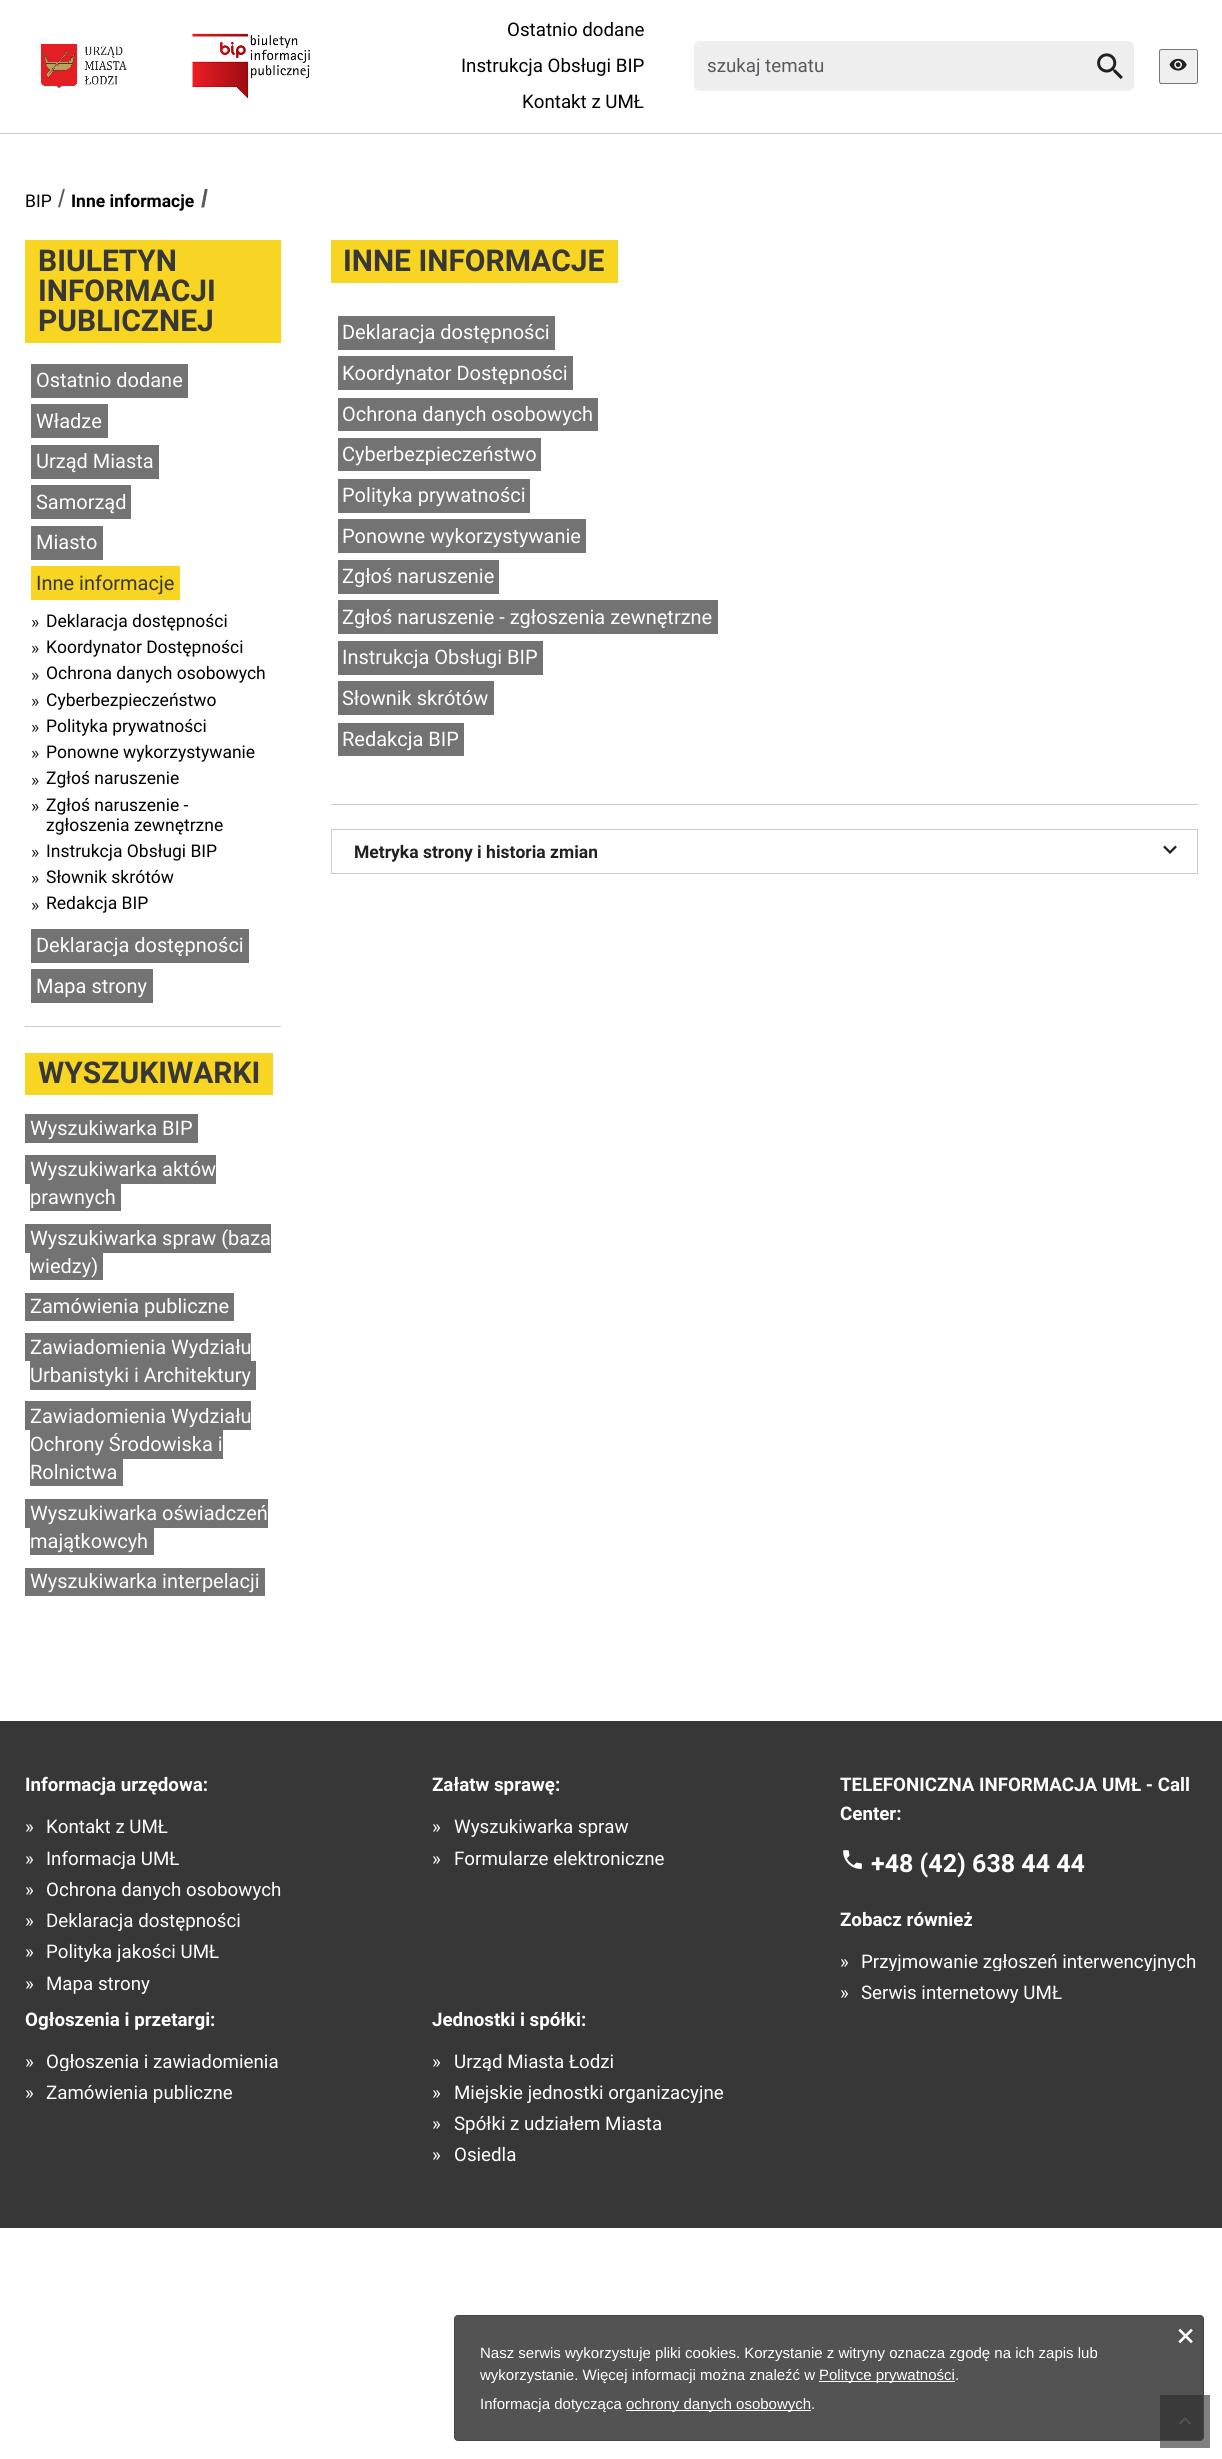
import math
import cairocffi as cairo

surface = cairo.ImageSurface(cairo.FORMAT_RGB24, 1222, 2459)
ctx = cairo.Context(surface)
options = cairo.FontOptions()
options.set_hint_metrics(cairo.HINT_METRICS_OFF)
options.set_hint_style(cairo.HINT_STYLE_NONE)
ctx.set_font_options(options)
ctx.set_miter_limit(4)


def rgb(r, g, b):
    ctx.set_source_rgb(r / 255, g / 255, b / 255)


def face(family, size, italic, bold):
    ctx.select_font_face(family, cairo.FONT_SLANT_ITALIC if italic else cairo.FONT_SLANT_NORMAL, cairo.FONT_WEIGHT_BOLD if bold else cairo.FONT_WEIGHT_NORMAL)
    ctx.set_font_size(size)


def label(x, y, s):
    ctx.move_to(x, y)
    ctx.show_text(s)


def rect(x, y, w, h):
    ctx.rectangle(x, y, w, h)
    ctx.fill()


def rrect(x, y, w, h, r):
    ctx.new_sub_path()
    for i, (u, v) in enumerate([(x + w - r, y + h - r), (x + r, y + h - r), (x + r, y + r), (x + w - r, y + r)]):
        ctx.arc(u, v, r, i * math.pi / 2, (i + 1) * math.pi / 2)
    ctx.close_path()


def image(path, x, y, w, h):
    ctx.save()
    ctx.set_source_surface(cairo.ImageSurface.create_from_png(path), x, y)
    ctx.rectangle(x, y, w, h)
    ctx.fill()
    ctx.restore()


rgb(255, 255, 255)
ctx.paint()
rgb(204, 204, 204)
rect(0, 133, 1222, 1)
image('image0.png', 40, 44, 87, 45)
image('image1.png', 192, 33, 118, 66)
face('Roboto', 18.75, 0, 0)
rgb(0, 0, 0)
label(507, 36, 'Ostatnio dodane')
label(461, 72, 'Instrukcja Obsługi BIP')
label(522, 108, 'Kontakt z UMŁ')
rgb(238, 238, 238)
ctx.new_path()
ctx.move_to(700, 41)
ctx.line_to(1086, 41)
ctx.line_to(1086, 91)
ctx.line_to(700, 91)
ctx.curve_to(696.5, 91, 694, 88.5, 694, 85)
ctx.line_to(694, 47)
ctx.curve_to(694, 43.5, 696.5, 41, 700, 41)
ctx.close_path()
ctx.fill()
rgb(86, 90, 94)
label(707, 72, 'szukaj tematu')
rgb(238, 238, 238)
ctx.new_path()
ctx.move_to(1086, 41)
ctx.line_to(1128, 41)
ctx.curve_to(1131.5, 41, 1134, 43.5, 1134, 47)
ctx.line_to(1134, 85)
ctx.curve_to(1134, 88.5, 1131.5, 91, 1128, 91)
ctx.line_to(1086, 91)
ctx.close_path()
ctx.fill()
image('image2.png', 1097, 53, 26, 27)
rgb(239, 239, 239)
rrect(1159.5, 49.5, 38, 34, 2)
ctx.fill_preserve()
rgb(118, 118, 118)
ctx.set_line_width(1)
ctx.stroke()
image('image3.png', 1169, 58, 18, 13)
face('Roboto', 17.5, 0, 0)
rgb(0, 0, 0)
label(25, 207, 'BIP')
face('Liberation Sans', 25, 0, 0)
rgb(86, 90, 94)
label(58, 207, '/')
face('Roboto', 17.5, 0, 1)
rgb(0, 0, 0)
label(71, 207, 'Inne informacje')
face('Liberation Sans', 25, 0, 1)
rgb(86, 90, 94)
label(201, 207, '/')
rgb(248, 213, 35)
rect(25, 240, 256, 103)
face('Roboto', 30, 0, 1)
rgb(55, 55, 55)
label(38, 271, 'BIULETYN')
label(38, 301, 'INFORMACJI')
label(38, 331, 'PUBLICZNEJ')
rgb(115, 115, 115)
rect(31, 364, 157, 34)
face('Roboto', 20, 0, 0)
rgb(255, 255, 255)
label(36, 387, 'Ostatnio dodane')
rgb(115, 115, 115)
rect(31, 404, 77, 34)
rgb(255, 255, 255)
label(36, 428, 'Władze')
rgb(115, 115, 115)
rect(31, 445, 128, 34)
rgb(255, 255, 255)
label(36, 468, 'Urząd Miasta')
rgb(115, 115, 115)
rect(31, 485, 100, 34)
rgb(255, 255, 255)
label(36, 509, 'Samorząd')
rgb(115, 115, 115)
rect(31, 526, 72, 34)
rgb(255, 255, 255)
label(36, 549, 'Miasto')
rgb(248, 213, 35)
rect(31, 566, 149, 34)
rgb(55, 55, 55)
label(36, 590, 'Inne informacje')
face('Roboto', 17.5, 0, 0)
rgb(33, 33, 33)
label(31, 628, '»')
rgb(0, 0, 0)
label(46, 627, 'Deklaracja dostępności')
rgb(33, 33, 33)
label(31, 654, '»')
rgb(0, 0, 0)
label(46, 653, 'Koordynator Dostępności')
rgb(33, 33, 33)
label(31, 681, '»')
rgb(0, 0, 0)
label(46, 679, 'Ochrona danych osobowych')
rgb(33, 33, 33)
label(31, 707, '»')
rgb(0, 0, 0)
label(46, 706, 'Cyberbezpieczeństwo')
rgb(33, 33, 33)
label(31, 733, '»')
rgb(0, 0, 0)
label(46, 732, 'Polityka prywatności')
rgb(33, 33, 33)
label(31, 759, '»')
rgb(0, 0, 0)
label(46, 758, 'Ponowne wykorzystywanie')
rgb(33, 33, 33)
label(31, 786, '»')
rgb(0, 0, 0)
label(46, 784, 'Zgłoś naruszenie')
rgb(33, 33, 33)
label(31, 812, '»')
rgb(0, 0, 0)
label(46, 811, 'Zgłoś naruszenie -')
label(46, 831, 'zgłoszenia zewnętrzne')
rgb(33, 33, 33)
label(31, 858, '»')
rgb(0, 0, 0)
label(46, 857, 'Instrukcja Obsługi BIP')
rgb(33, 33, 33)
label(31, 884, '»')
rgb(0, 0, 0)
label(46, 883, 'Słownik skrótów')
rgb(33, 33, 33)
label(31, 911, '»')
rgb(0, 0, 0)
label(46, 909, 'Redakcja BIP')
rgb(115, 115, 115)
rect(31, 929, 218, 34)
face('Roboto', 20, 0, 0)
rgb(255, 255, 255)
label(36, 952, 'Deklaracja dostępności')
rgb(115, 115, 115)
rect(31, 969, 122, 34)
rgb(255, 255, 255)
label(36, 993, 'Mapa strony')
rgb(204, 204, 204)
rect(25, 1026, 256, 1)
rgb(248, 213, 35)
rect(25, 1053, 248, 42)
face('Roboto', 30, 0, 1)
rgb(55, 55, 55)
label(38, 1083, 'WYSZUKIWARKI')
rgb(115, 115, 115)
rect(25, 1114, 173, 29)
face('Roboto', 20, 0, 0)
rgb(255, 255, 255)
label(30, 1135, 'Wyszukiwarka BIP')
rgb(115, 115, 115)
rect(25, 1155, 191, 29)
rgb(255, 255, 255)
label(30, 1176, 'Wyszukiwarka aktów')
rgb(115, 115, 115)
rect(30, 1184, 91, 27)
rgb(255, 255, 255)
label(30, 1204, 'prawnych')
rgb(115, 115, 115)
rect(25, 1224, 246, 29)
rgb(255, 255, 255)
label(30, 1245, 'Wyszukiwarka spraw (baza')
rgb(115, 115, 115)
rect(30, 1253, 73, 27)
rgb(255, 255, 255)
label(30, 1273, 'wiedzy)')
rgb(115, 115, 115)
rect(25, 1293, 209, 28)
rgb(255, 255, 255)
label(30, 1313, 'Zamówienia publiczne')
rgb(115, 115, 115)
rect(25, 1333, 226, 28)
rgb(255, 255, 255)
label(30, 1354, 'Zawiadomienia Wydziału')
rgb(115, 115, 115)
rect(30, 1361, 226, 29)
rgb(255, 255, 255)
label(30, 1382, 'Urbanistyki i Architektury')
rgb(115, 115, 115)
rect(25, 1401, 226, 29)
rgb(255, 255, 255)
label(30, 1423, 'Zawiadomienia Wydziału')
rgb(115, 115, 115)
rect(30, 1430, 193, 29)
rgb(255, 255, 255)
label(30, 1451, 'Ochrony Środowiska i')
rgb(115, 115, 115)
rect(30, 1459, 93, 27)
rgb(255, 255, 255)
label(30, 1479, 'Rolnictwa')
rgb(115, 115, 115)
rect(25, 1499, 243, 29)
rgb(255, 255, 255)
label(30, 1520, 'Wyszukiwarka oświadczeń')
rgb(115, 115, 115)
rect(30, 1528, 124, 27)
rgb(255, 255, 255)
label(30, 1548, 'majątkowcyh')
rgb(115, 115, 115)
rect(25, 1568, 240, 28)
rgb(255, 255, 255)
label(30, 1588, 'Wyszukiwarka interpelacji')
rgb(248, 213, 35)
rect(331, 240, 287, 43)
face('Roboto', 30, 0, 1)
rgb(55, 55, 55)
label(343, 271, 'INNE INFORMACJE')
rgb(115, 115, 115)
rect(338, 316, 217, 34)
face('Roboto', 20, 0, 0)
rgb(255, 255, 255)
label(342, 339, 'Deklaracja dostępności')
rgb(115, 115, 115)
rect(338, 356, 235, 34)
rgb(255, 255, 255)
label(342, 380, 'Koordynator Dostępności')
rgb(115, 115, 115)
rect(338, 398, 260, 33)
rgb(255, 255, 255)
label(342, 421, 'Ochrona danych osobowych')
rgb(115, 115, 115)
rect(338, 438, 203, 33)
rgb(255, 255, 255)
label(342, 461, 'Cyberbezpieczeństwo')
rgb(115, 115, 115)
rect(338, 479, 192, 34)
rgb(255, 255, 255)
label(342, 502, 'Polityka prywatności')
rgb(115, 115, 115)
rect(338, 519, 248, 34)
rgb(255, 255, 255)
label(342, 543, 'Ponowne wykorzystywanie')
rgb(115, 115, 115)
rect(338, 560, 161, 34)
rgb(255, 255, 255)
label(342, 583, 'Zgłoś naruszenie')
rgb(115, 115, 115)
rect(338, 600, 380, 34)
rgb(255, 255, 255)
label(342, 624, 'Zgłoś naruszenie - zgłoszenia zewnętrzne')
rgb(115, 115, 115)
rect(338, 641, 205, 34)
rgb(255, 255, 255)
label(342, 664, 'Instrukcja Obsługi BIP')
rgb(115, 115, 115)
rect(338, 681, 156, 34)
rgb(255, 255, 255)
label(342, 705, 'Słownik skrótów')
rgb(115, 115, 115)
rect(338, 723, 126, 33)
rgb(255, 255, 255)
label(342, 746, 'Redakcja BIP')
rgb(204, 204, 204)
rect(331, 804, 867, 1)
ctx.rectangle(331.5, 829.5, 866, 44)
ctx.stroke()
face('Roboto', 17.5, 0, 1)
rgb(33, 33, 33)
label(354, 858, 'Metryka strony i historia zmian')
image('image4.png', 1163, 845, 14, 9)
rgb(55, 55, 55)
rect(0, 1721, 1222, 507)
face('Roboto', 18.75, 0, 1)
rgb(255, 255, 255)
label(25, 1791, 'Informacja urzędowa:')
face('Roboto', 18.75, 0, 0)
label(25, 1833, '»')
label(46, 1833, 'Kontakt z UMŁ')
label(25, 1865, '»')
label(46, 1865, 'Informacja UMŁ')
label(25, 1896, '»')
label(46, 1896, 'Ochrona danych osobowych')
label(25, 1927, '»')
ctx.save()
ctx.rectangle(25, 1913, 358, 18)
ctx.clip()
label(46, 1927, 'Deklaracja dostępności')
ctx.restore()
label(25, 1958, '»')
label(46, 1958, 'Polityka jakości UMŁ')
label(25, 1990, '»')
label(46, 1990, 'Mapa strony')
face('Roboto', 18.75, 0, 1)
label(432, 1791, 'Załatw sprawę:')
face('Roboto', 18.75, 0, 0)
label(432, 1833, '»')
label(454, 1833, 'Wyszukiwarka spraw')
label(432, 1865, '»')
label(454, 1865, 'Formularze elektroniczne')
face('Roboto', 18.75, 0, 1)
label(25, 2026, 'Ogłoszenia i przetargi:')
face('Roboto', 18.75, 0, 0)
label(25, 2068, '»')
ctx.save()
ctx.rectangle(25, 2053, 358, 18)
ctx.clip()
label(46, 2068, 'Ogłoszenia i zawiadomienia')
ctx.restore()
label(25, 2099, '»')
label(46, 2099, 'Zamówienia publiczne')
face('Roboto', 18.75, 0, 1)
label(432, 2026, 'Jednostki i spółki:')
face('Roboto', 18.75, 0, 0)
label(432, 2068, '»')
ctx.save()
ctx.rectangle(433, 2053, 357, 18)
ctx.clip()
label(454, 2068, 'Urząd Miasta Łodzi')
ctx.restore()
label(432, 2099, '»')
label(454, 2099, 'Miejskie jednostki organizacyjne')
label(432, 2130, '»')
label(454, 2130, 'Spółki z udziałem Miasta')
label(432, 2161, '»')
label(454, 2161, 'Osiedla')
face('Roboto', 18.75, 0, 1)
label(840, 1791, 'TELEFONICZNA INFORMACJA UMŁ - Call')
label(840, 1820, 'Center:')
image('image5.png', 843, 1850, 19, 19)
face('Roboto', 25, 0, 1)
label(871, 1872, '+48 (42) 638 44 44')
face('Roboto', 18.75, 0, 1)
label(840, 1926, 'Zobacz również')
face('Roboto', 18.75, 0, 0)
label(840, 1968, '»')
ctx.save()
ctx.rectangle(840, 1953, 358, 18)
ctx.clip()
label(861, 1968, 'Przyjmowanie zgłoszeń interwencyjnych')
ctx.restore()
label(840, 1999, '»')
label(861, 1999, 'Serwis internetowy UMŁ')
rgb(128, 128, 128)
rect(1160, 2395, 50, 53)
image('image6.png', 1178, 2417, 14, 8)
ctx.set_source_rgba(0.161, 0.161, 0.161, 0.8)
rrect(454.5, 2315.5, 749, 125, 3.5)
ctx.fill_preserve()
rgb(68, 68, 68)
ctx.stroke()
face('DejaVu Sans Mono', 32, 0, 0)
rgb(255, 255, 255)
label(1176, 2346, '×')
face('Liberation Sans', 15, 0, 0)
label(480, 2358, 'Nasz serwis wykorzystuje pliki cookies. Korzystanie z witryny oznacza zgodę na ich zapis lub')
label(480, 2380, 'wykorzystanie. Więcej informacji można znaleźć w')
rect(819, 2381, 136, 1)
label(819, 2380, 'Polityce prywatności.')
label(480, 2409, 'Informacja dotycząca')
rect(626, 2410, 185, 1)
label(626, 2409, 'ochrony danych osobowych.')
surface.write_to_png('render.png')
